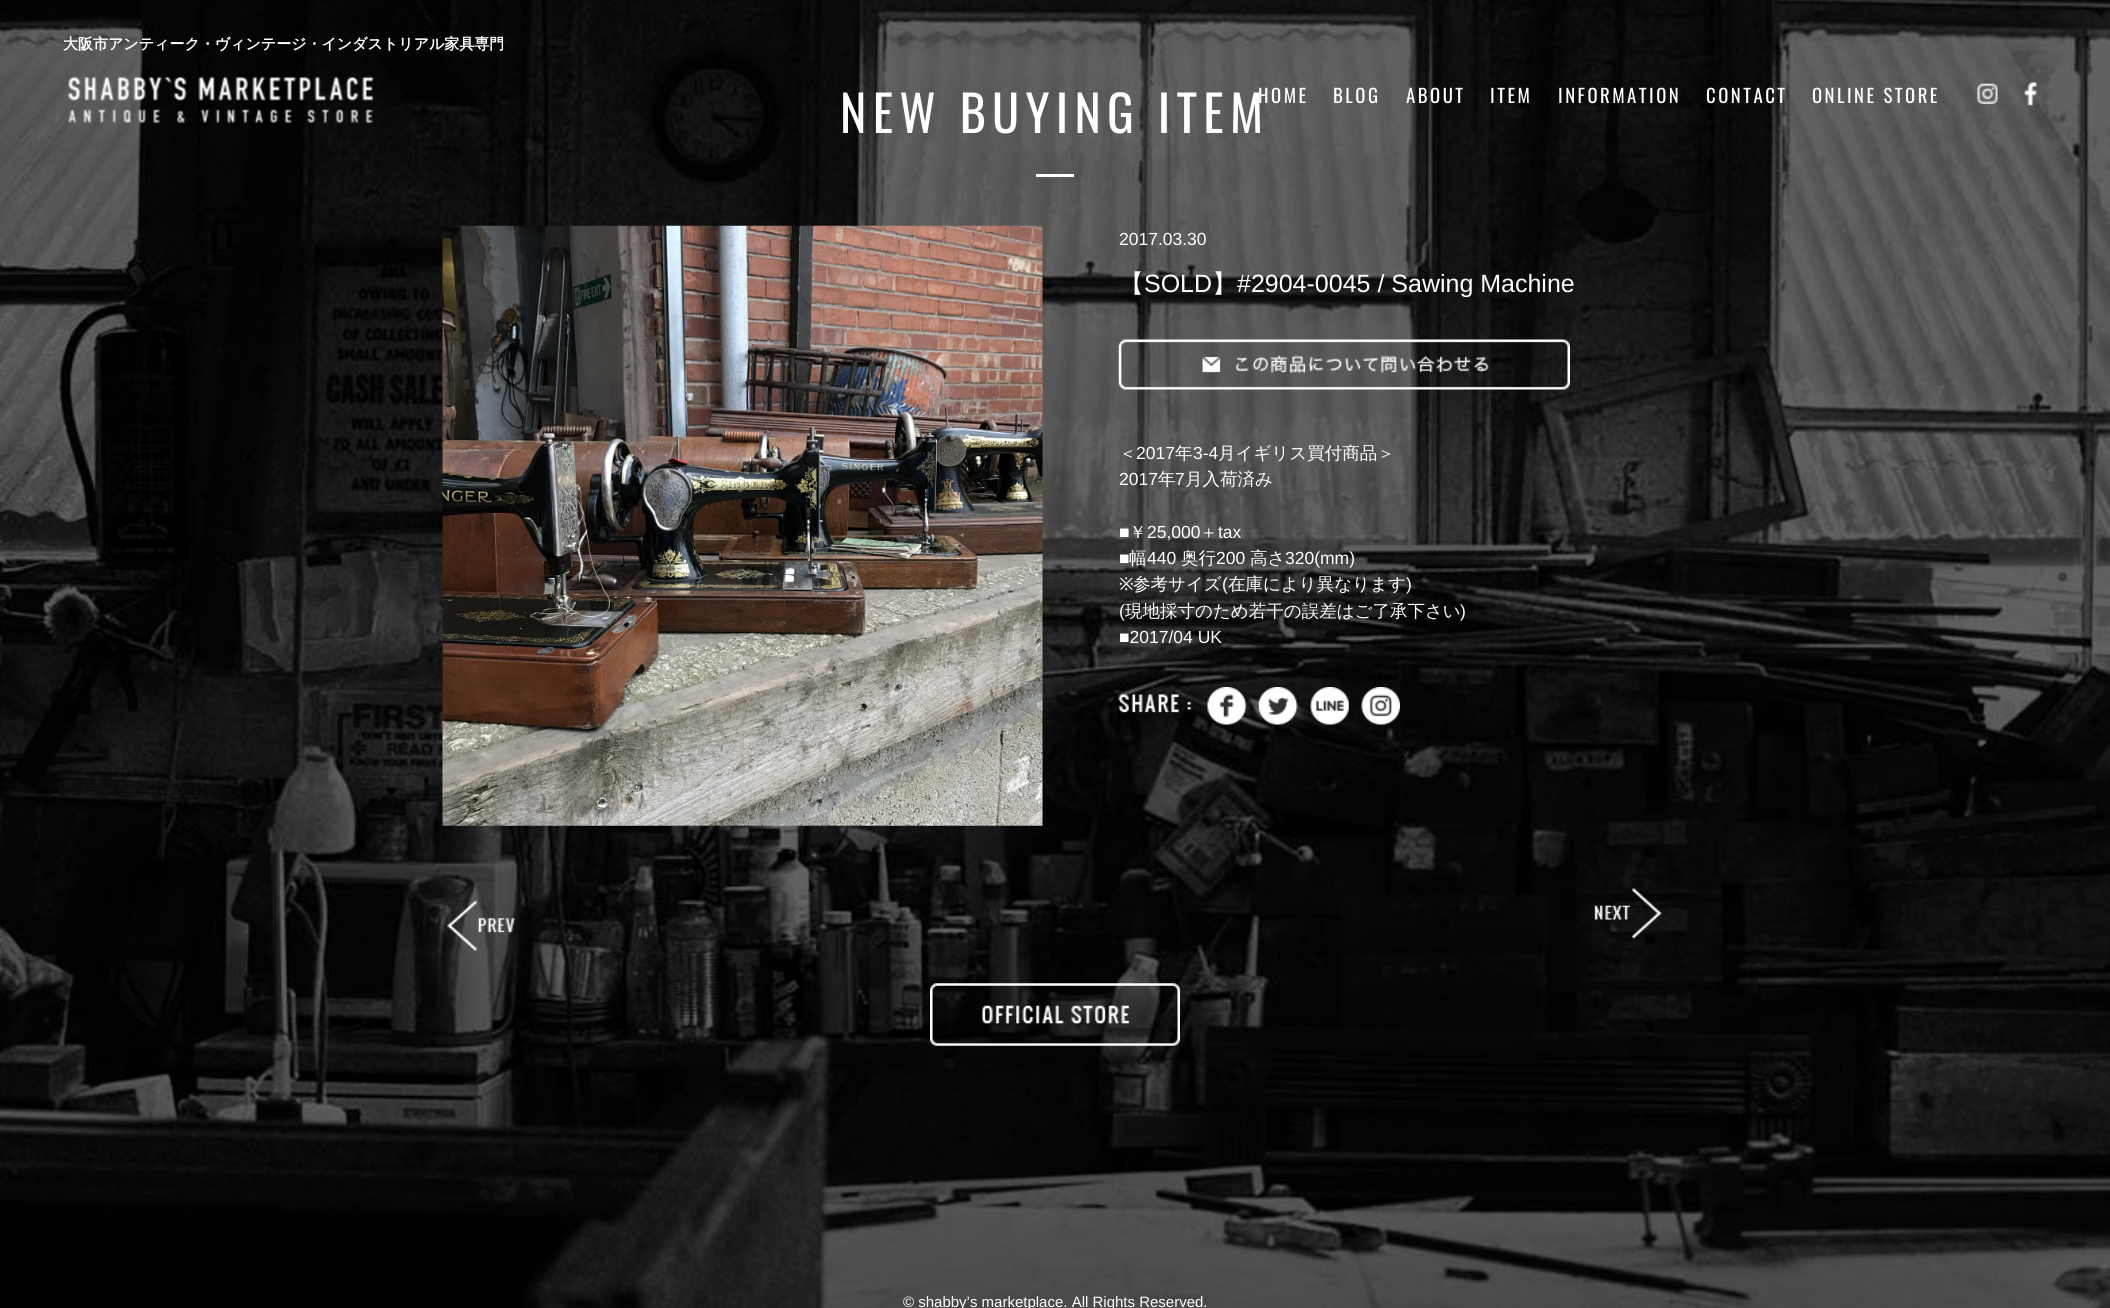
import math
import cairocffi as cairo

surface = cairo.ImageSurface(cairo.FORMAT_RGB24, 2110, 1308)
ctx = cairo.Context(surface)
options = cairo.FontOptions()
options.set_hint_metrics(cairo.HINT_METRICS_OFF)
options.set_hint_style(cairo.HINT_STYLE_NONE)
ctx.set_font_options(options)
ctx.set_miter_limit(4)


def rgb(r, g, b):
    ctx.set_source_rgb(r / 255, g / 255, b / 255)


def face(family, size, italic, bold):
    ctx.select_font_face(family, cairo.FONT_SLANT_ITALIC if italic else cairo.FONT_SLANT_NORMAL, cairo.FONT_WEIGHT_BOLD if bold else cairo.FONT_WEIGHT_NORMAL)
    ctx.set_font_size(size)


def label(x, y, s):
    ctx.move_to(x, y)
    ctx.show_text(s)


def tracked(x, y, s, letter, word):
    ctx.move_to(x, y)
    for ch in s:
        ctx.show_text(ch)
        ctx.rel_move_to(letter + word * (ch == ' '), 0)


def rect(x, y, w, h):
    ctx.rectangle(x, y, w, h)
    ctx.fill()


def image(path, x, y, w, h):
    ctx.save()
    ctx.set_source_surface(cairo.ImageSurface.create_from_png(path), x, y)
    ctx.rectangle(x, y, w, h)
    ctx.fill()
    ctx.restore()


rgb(255, 255, 255)
ctx.paint()
image('image0.png', 0, 0, 2110, 1308)
face('WenQuanYi Zen Hei', 15, 0, 1)
rgb(255, 255, 255)
label(63, 49, '大阪市アンティーク・ヴィンテージ・インダストリアル家具専門')
image('image1.png', 68, 76, 306, 47)
face('Oswald', 50, 0, 0)
tracked(840, 133, 'NEW BUYING ITEM', 6.25, 0)
face('Oswald', 18.75, 0, 0)
tracked(1258, 103, 'HOME', 2.5, 0)
tracked(1333, 103, 'BLOG', 2.5, 0)
tracked(1406, 103, 'ABOUT', 2.5, 0)
tracked(1490, 103, 'ITEM', 2.5, 0)
tracked(1558, 103, 'INFORMATION', 2.5, 0)
tracked(1706, 103, 'CONTACT', 2.5, 0)
tracked(1812, 103, 'ONLINE STORE', 2.5, 0)
image('image2.png', 1977, 83, 21, 21)
image('image3.png', 2024, 81, 13, 25)
rect(1036, 174, 38, 3)
image('image4.png', 442, 225, 601, 601)
face('Liberation Sans', 17.5, 0, 0)
label(1119, 245, '2017.03.30')
face('WenQuanYi Zen Hei Medium', 25, 0, 0)
label(1119, 292, '【')
face('Liberation Sans', 25, 0, 0)
label(1144, 292, 'SOLD')
face('WenQuanYi Zen Hei Medium', 25, 0, 0)
label(1212, 292, '】')
face('Liberation Sans', 25, 0, 0)
label(1237, 292, '#2904-0045 / Sawing Machine')
image('image5.png', 1118, 339, 452, 51)
face('WenQuanYi Zen Hei Medium', 17.5, 0, 0)
label(1119, 459, '＜')
face('Liberation Sans', 17.5, 0, 0)
label(1136, 459, '2017')
face('WenQuanYi Zen Hei Medium', 17.5, 0, 0)
label(1175, 459, '年')
face('Liberation Sans', 17.5, 0, 0)
label(1193, 459, '3-4')
face('WenQuanYi Zen Hei Medium', 17.5, 0, 0)
label(1218, 459, '月イギリス買付商品＞')
face('Liberation Sans', 17.5, 0, 0)
label(1119, 485, '2017')
face('WenQuanYi Zen Hei Medium', 17.5, 0, 0)
label(1158, 485, '年')
face('Liberation Sans', 17.5, 0, 0)
label(1175, 485, '7')
face('WenQuanYi Zen Hei Medium', 17.5, 0, 0)
label(1185, 485, '月入荷済み')
face('Liberation Sans', 17.5, 0, 0)
label(1119, 538, '■')
face('WenQuanYi Zen Hei Medium', 17.5, 0, 0)
label(1129, 538, '￥')
face('Liberation Sans', 17.5, 0, 0)
label(1147, 538, '25,000')
face('WenQuanYi Zen Hei Medium', 17.5, 0, 0)
label(1200, 538, '＋')
face('Liberation Sans', 17.5, 0, 0)
label(1218, 538, 'tax')
label(1119, 564, '■')
face('WenQuanYi Zen Hei Medium', 17.5, 0, 0)
label(1129, 564, '幅')
face('Liberation Sans', 17.5, 0, 0)
label(1147, 564, '440')
face('WenQuanYi Zen Hei Medium', 17.5, 0, 0)
label(1181, 564, '奥行')
face('Liberation Sans', 17.5, 0, 0)
label(1216, 564, '200')
face('WenQuanYi Zen Hei Medium', 17.5, 0, 0)
label(1250, 564, '高さ')
face('Liberation Sans', 17.5, 0, 0)
label(1285, 564, '320(mm)')
face('Noto Sans', 17.5, 0, 0)
label(1119, 590, '※')
face('WenQuanYi Zen Hei Medium', 17.5, 0, 0)
label(1133, 590, '参考サイズ')
face('Liberation Sans', 17.5, 0, 0)
label(1222, 590, '(')
face('WenQuanYi Zen Hei Medium', 17.5, 0, 0)
label(1228, 590, '在庫により異なります')
face('Liberation Sans', 17.5, 0, 0)
label(1406, 590, ')')
label(1119, 617, '(')
face('WenQuanYi Zen Hei Medium', 17.5, 0, 0)
label(1125, 617, '現地採寸のため若干の誤差はご了承下さい')
face('Liberation Sans', 17.5, 0, 0)
label(1460, 617, ')')
label(1119, 643, '■2017/04 UK')
image('image6.png', 1118, 694, 74, 19)
image('image7.png', 1207, 687, 40, 38)
image('image8.png', 1258, 687, 40, 38)
image('image9.png', 1310, 687, 39, 38)
image('image10.png', 1361, 687, 39, 38)
image('image11.png', 447, 900, 69, 51)
image('image12.png', 1594, 888, 68, 51)
image('image13.png', 930, 983, 250, 63)
face('Liberation Sans', 15, 0, 0)
label(903, 1307, '© shabby’s marketplace. All Rights Reserved.')
surface.write_to_png('render.png')
